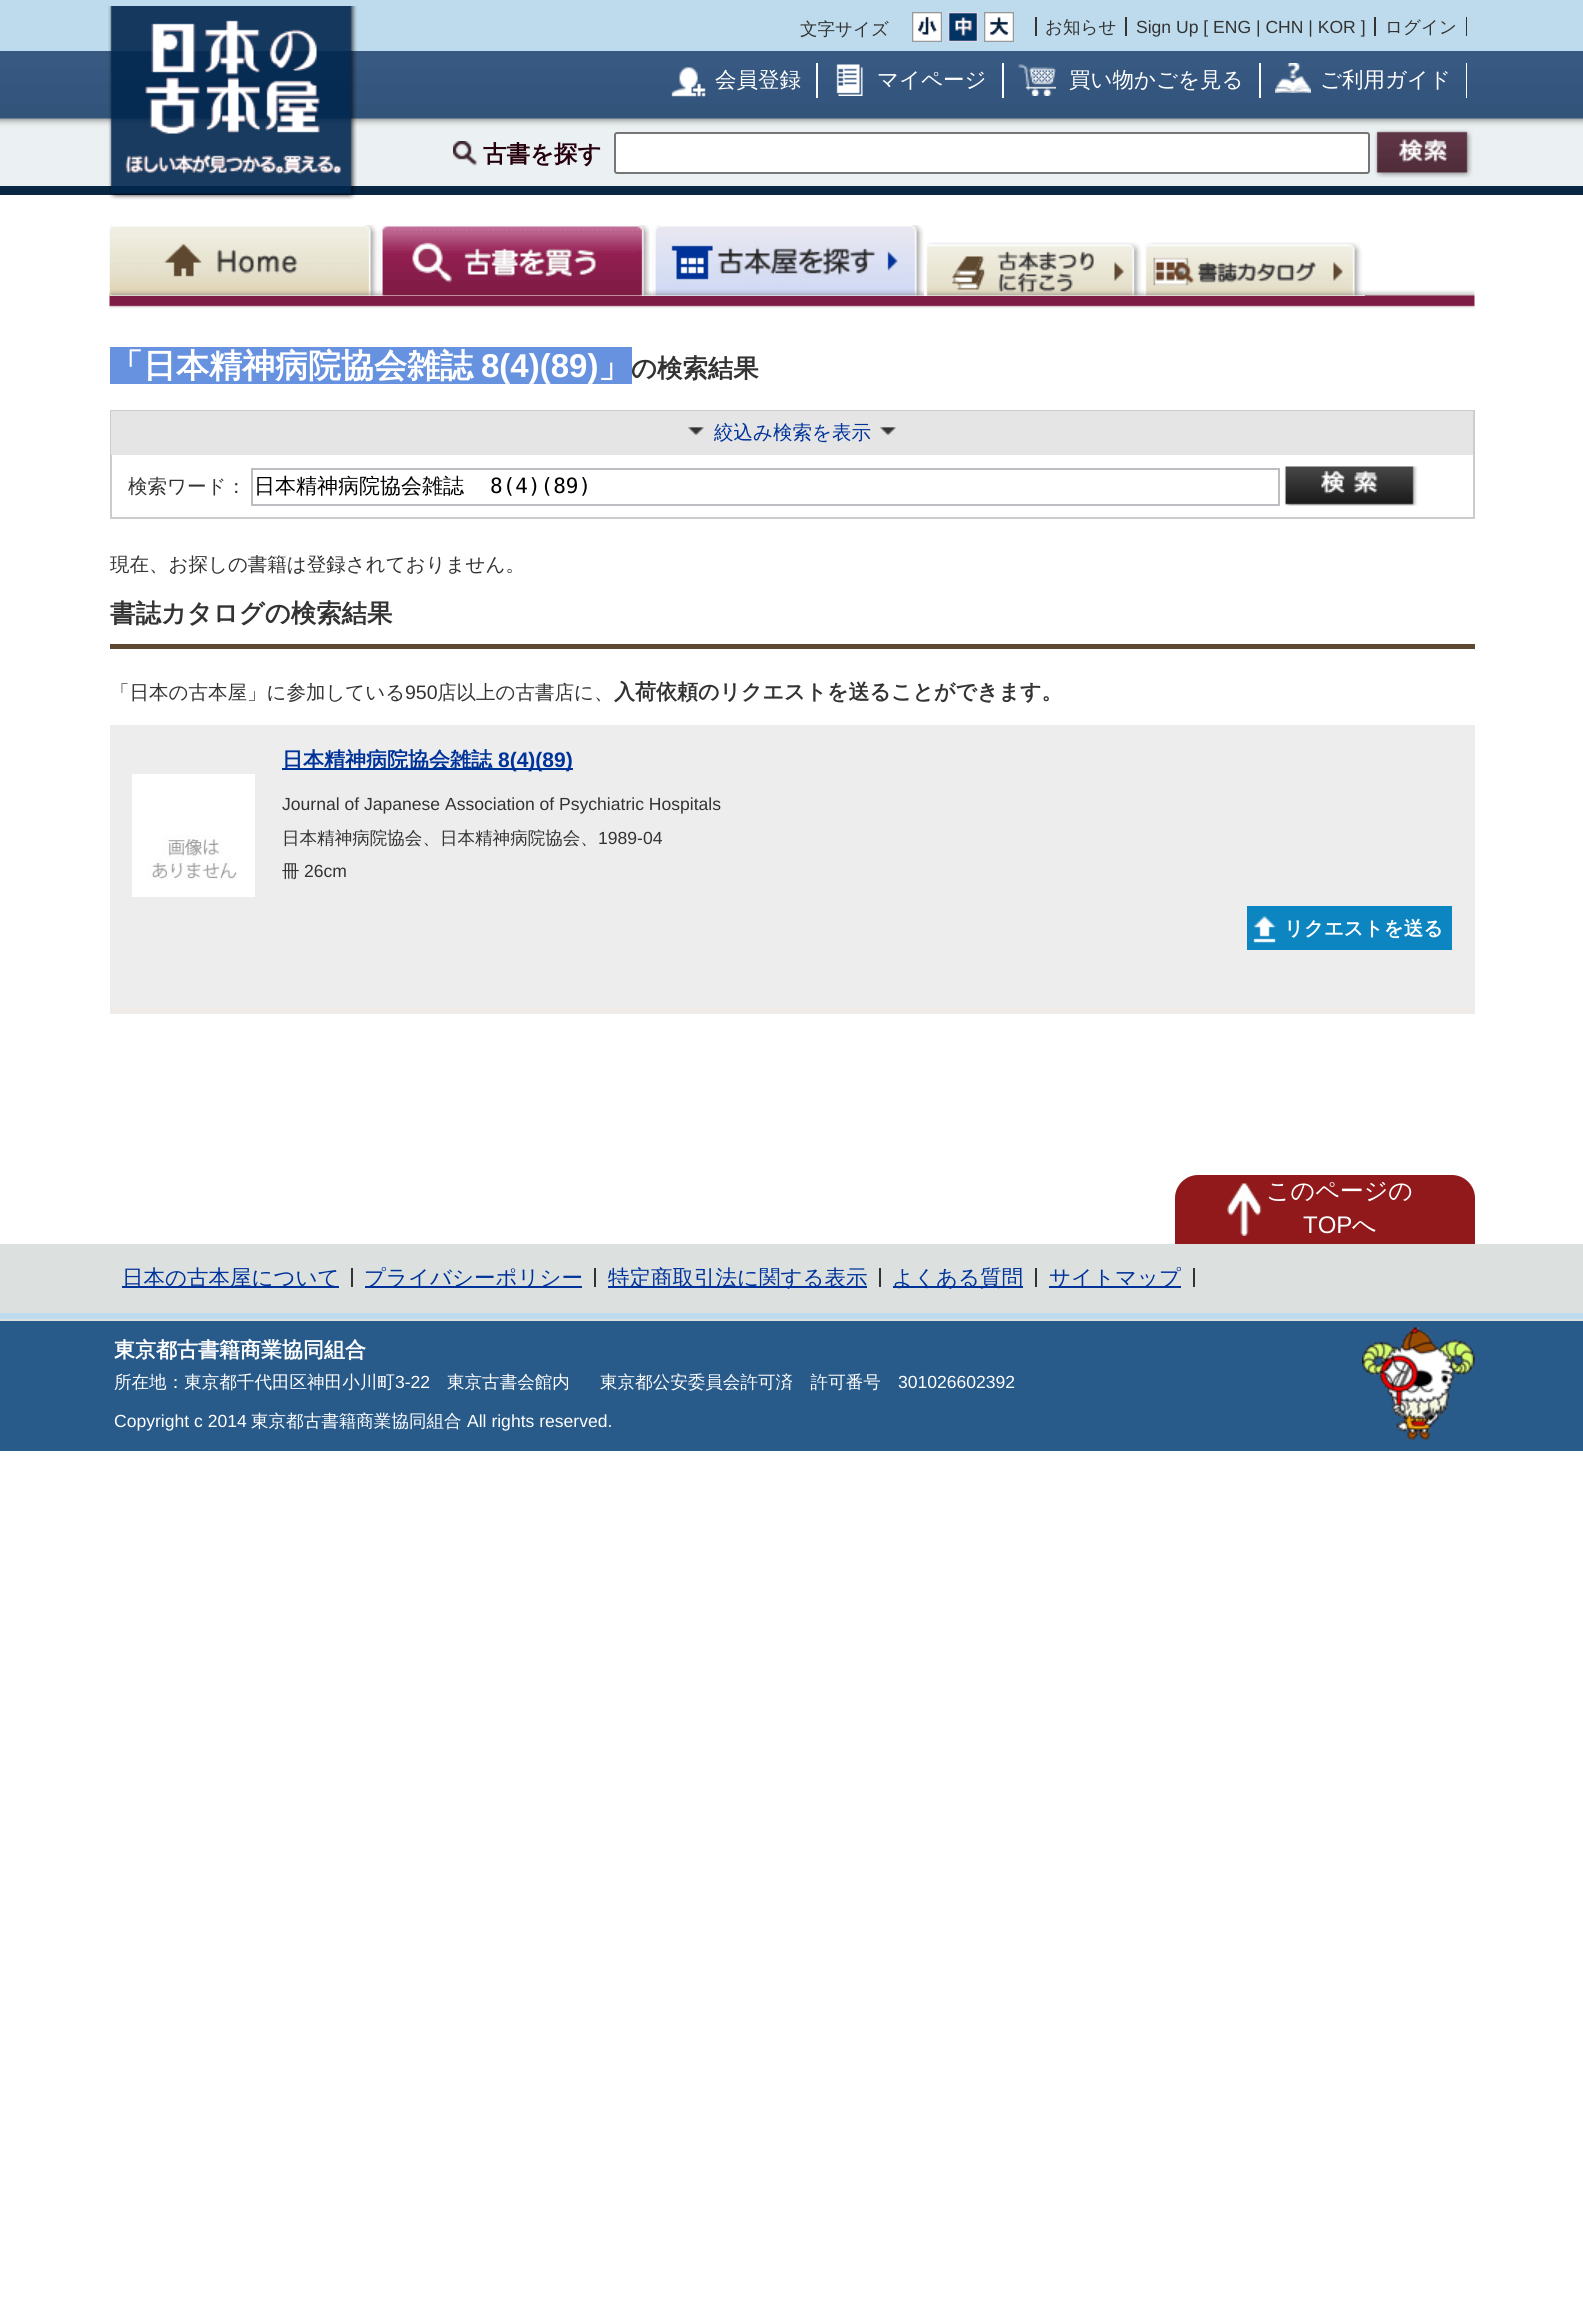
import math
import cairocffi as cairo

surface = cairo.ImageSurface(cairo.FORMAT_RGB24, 1583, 2298)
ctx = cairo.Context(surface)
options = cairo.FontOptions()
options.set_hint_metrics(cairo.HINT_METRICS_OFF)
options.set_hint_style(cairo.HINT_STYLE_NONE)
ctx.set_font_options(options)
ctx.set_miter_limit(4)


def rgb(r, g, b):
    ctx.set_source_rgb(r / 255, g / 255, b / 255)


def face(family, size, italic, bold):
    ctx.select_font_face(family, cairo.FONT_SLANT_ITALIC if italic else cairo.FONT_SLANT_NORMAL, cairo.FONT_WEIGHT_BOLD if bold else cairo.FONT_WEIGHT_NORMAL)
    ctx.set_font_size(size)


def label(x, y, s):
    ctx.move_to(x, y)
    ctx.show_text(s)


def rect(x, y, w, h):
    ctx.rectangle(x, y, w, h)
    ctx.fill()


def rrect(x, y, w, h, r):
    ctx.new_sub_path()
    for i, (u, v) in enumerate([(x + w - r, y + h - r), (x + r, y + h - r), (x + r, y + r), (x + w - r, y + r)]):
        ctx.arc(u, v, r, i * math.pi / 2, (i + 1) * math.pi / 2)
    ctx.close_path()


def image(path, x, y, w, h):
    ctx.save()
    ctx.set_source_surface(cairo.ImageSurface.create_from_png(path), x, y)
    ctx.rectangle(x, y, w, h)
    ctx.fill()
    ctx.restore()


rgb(255, 255, 255)
ctx.paint()
rgb(189, 219, 237)
rect(0, 0, 1583, 51)
image('image4.png', 0, 51, 1583, 78)
rgb(235, 240, 243)
rect(0, 129, 1583, 57)
rgb(9, 38, 66)
rect(0, 186, 1583, 9)
image('image0.png', 108, 6, 249, 194)
face('WenQuanYi Zen Hei Medium', 17.55, 0, 0)
rgb(51, 51, 51)
label(800, 35, '文字サイズ')
image('image1.png', 912, 12, 30, 30)
image('image2.png', 948, 12, 30, 30)
image('image3.png', 984, 12, 30, 30)
rect(1035, 17, 2, 19)
label(1045, 33, 'お知らせ')
rect(1125, 17, 2, 19)
face('Liberation Sans', 17.55, 0, 0)
label(1136, 33, 'Sign Up [ ENG | CHN | KOR ]')
rect(1466, 17, 1, 19)
rect(1374, 17, 2, 19)
face('WenQuanYi Zen Hei Medium', 17.55, 0, 0)
label(1385, 33, 'ログイン')
image('image5.png', 671, 67, 35, 30)
rgb(255, 255, 255)
rect(816, 63, 2, 35)
face('WenQuanYi Zen Hei Medium', 21.5, 0, 0)
label(715, 87, '会員登録')
image('image6.png', 836, 64, 27, 32)
rect(1002, 63, 2, 35)
label(877, 87, 'マイページ')
image('image7.png', 1018, 64, 38, 32)
rect(1259, 63, 2, 35)
label(1069, 87, '買い物かごを見る')
image('image8.png', 1275, 63, 36, 30)
rect(1466, 63, 1, 35)
label(1320, 87, 'ご利用ガイド')
image('image9.png', 453, 141, 24, 25)
face('WenQuanYi Zen Hei', 23.5, 0, 1)
rgb(38, 0, 12)
label(483, 162, '古書を探す')
rgb(255, 255, 255)
rrect(615, 133, 754, 40, 2)
ctx.fill_preserve()
rgb(118, 118, 118)
ctx.stroke()
image('image10.png', 1374, 129, 99, 49)
image('image11.png', 109, 290, 1366, 19)
rgb(255, 255, 255)
rect(110, 295, 271, 1)
image('image12.png', 109, 225, 272, 71)
rect(381, 290, 272, 6)
image('image13.png', 381, 225, 272, 71)
rect(653, 295, 271, 1)
image('image14.png', 652, 225, 272, 71)
rect(924, 290, 221, 6)
image('image15.png', 926, 242, 219, 54)
rect(1145, 295, 220, 1)
image('image16.png', 1144, 242, 221, 54)
rgb(103, 146, 224)
rect(110, 347, 522, 37)
face('WenQuanYi Zen Hei', 33, 0, 1)
rgb(255, 255, 255)
label(110, 377, '「日本精神病院協会雑誌')
face('Liberation Sans', 33, 0, 1)
label(481, 377, '8(4)(89)')
face('WenQuanYi Zen Hei', 33, 0, 1)
label(598, 377, '」')
face('WenQuanYi Zen Hei', 25.4, 0, 1)
rgb(51, 51, 51)
label(631, 377, 'の検索結果')
ctx.rectangle(111, 411, 1363, 107)
rgb(204, 204, 204)
ctx.stroke()
rgb(229, 229, 229)
rect(111, 411, 1362, 44)
image('image17.png', 688, 427, 16, 8)
image('image17.png', 880, 427, 16, 8)
face('WenQuanYi Zen Hei Medium', 19.5, 0, 0)
rgb(0, 51, 153)
label(714, 439, '絞込み検索を表示')
rgb(51, 51, 51)
label(128, 493, '検索ワード：')
ctx.rectangle(252, 469, 1027, 36)
rgb(187, 189, 194)
ctx.stroke()
face('WenQuanYi Zen Hei Medium', 21, 0, 0)
rgb(0, 0, 0)
label(254, 493, '日本精神病院協会雑誌')
face('DejaVu Sans Mono', 21, 0, 0)
label(490, 493, '8(4)(89)')
image('image18.png', 1284, 466, 134, 40)
ctx.save()
ctx.rectangle(110, 296, 1365, 849)
ctx.clip()
face('WenQuanYi Zen Hei Medium', 19.5, 0, 0)
rgb(51, 51, 51)
label(110, 571, '現在、お探しの書籍は登録されておりません。')
ctx.restore()
rgb(94, 72, 48)
rect(110, 644, 1365, 5)
face('WenQuanYi Zen Hei', 25.4, 0, 1)
rgb(51, 51, 51)
label(110, 622, '書誌カタログの検索結果')
face('WenQuanYi Zen Hei Medium', 19.5, 0, 0)
label(110, 699, '「日本の古本屋」に参加している')
face('Liberation Sans', 19.5, 0, 0)
label(405, 699, '950')
face('WenQuanYi Zen Hei Medium', 19.5, 0, 0)
label(437, 699, '店以上の古書店に、')
face('WenQuanYi Zen Hei', 21, 0, 1)
label(614, 699, '入荷依頼のリクエストを送ることができます。')
rgb(237, 237, 237)
rect(110, 725, 1365, 282)
rgb(239, 236, 232)
rect(110, 1007, 1365, 7)
image('image19.png', 132, 774, 123, 123)
rgb(0, 51, 153)
rect(282, 768, 291, 2)
label(282, 767, '日本精神病院協会雑誌')
face('Liberation Sans', 21, 0, 1)
label(498, 767, '8(4)(89)')
face('Liberation Sans', 17.55, 0, 0)
rgb(51, 51, 51)
label(282, 810, 'Journal of Japanese Association of Psychiatric Hospitals')
face('WenQuanYi Zen Hei Medium', 17.55, 0, 0)
label(282, 844, '日本精神病院協会、日本精神病院協会、')
face('Liberation Sans', 17.55, 0, 0)
label(598, 844, '1989-04')
face('WenQuanYi Zen Hei Medium', 17.55, 0, 0)
label(282, 877, '冊')
face('Liberation Sans', 17.55, 0, 0)
label(304, 877, '26cm')
rgb(13, 133, 193)
rect(1247, 906, 205, 44)
image('image20.png', 1253, 916, 23, 27)
face('WenQuanYi Zen Hei', 19.5, 0, 1)
rgb(255, 255, 255)
label(1284, 935, 'リクエストを送る')
rgb(145, 25, 27)
ctx.new_path()
ctx.move_to(1198, 1175)
ctx.line_to(1452, 1175)
ctx.curve_to(1464.5, 1175, 1475, 1185.5, 1475, 1198)
ctx.line_to(1475, 1244)
ctx.line_to(1175, 1244)
ctx.line_to(1175, 1198)
ctx.curve_to(1175, 1185.5, 1185.5, 1175, 1198, 1175)
ctx.close_path()
ctx.fill()
image('image21.png', 1227, 1183, 35, 53)
face('WenQuanYi Zen Hei Medium', 24, 0, 0)
rgb(255, 255, 255)
label(1266, 1199, 'このページの')
face('Liberation Sans', 24, 0, 0)
label(1303, 1233, 'TOP')
face('WenQuanYi Zen Hei Medium', 24, 0, 0)
label(1352, 1233, 'へ')
rgb(220, 225, 224)
rect(0, 1244, 1583, 69)
rgb(189, 219, 237)
rect(0, 1313, 1583, 6)
rgb(51, 51, 51)
rect(351, 1268, 2, 19)
rgb(0, 51, 153)
rect(122, 1286, 217, 2)
face('WenQuanYi Zen Hei Medium', 21.5, 0, 0)
label(122, 1285, '日本の古本屋について')
rgb(51, 51, 51)
rect(594, 1268, 2, 19)
rgb(0, 51, 153)
rect(365, 1286, 217, 2)
label(364, 1285, 'プライバシーポリシー')
rgb(51, 51, 51)
rect(879, 1268, 2, 19)
rgb(0, 51, 153)
rect(608, 1286, 259, 2)
label(608, 1285, '特定商取引法に関する表示')
rgb(51, 51, 51)
rect(1035, 1268, 2, 19)
rgb(0, 51, 153)
rect(893, 1286, 130, 2)
label(892, 1285, 'よくある質問')
rgb(51, 51, 51)
rect(1193, 1268, 2, 19)
rgb(0, 51, 153)
rect(1049, 1286, 132, 2)
label(1049, 1285, 'サイトマップ')
rgb(40, 90, 138)
rect(0, 1321, 1583, 130)
rgb(220, 225, 224)
rect(0, 1319, 1583, 2)
image('image22.png', 1362, 1327, 113, 113)
face('WenQuanYi Zen Hei', 21, 0, 1)
rgb(255, 255, 255)
label(114, 1357, '東京都古書籍商業協同組合')
face('WenQuanYi Zen Hei Medium', 17.55, 0, 0)
label(114, 1388, '所在地：東京都千代田区神田小川町')
face('Liberation Sans', 17.55, 0, 0)
label(395, 1388, '3-22')
face('WenQuanYi Zen Hei Medium', 17.55, 0, 0)
label(447, 1388, '東京古書会館内')
label(600, 1388, '東京都公安委員会許可済　許可番号')
face('Liberation Sans', 17.55, 0, 0)
label(898, 1388, '301026602392')
label(114, 1427, 'Copyright c 2014')
face('WenQuanYi Zen Hei Medium', 17.55, 0, 0)
label(251, 1427, '東京都古書籍商業協同組合')
face('Liberation Sans', 17.55, 0, 0)
label(467, 1427, 'All rights reserved.')
surface.write_to_png('render.png')
